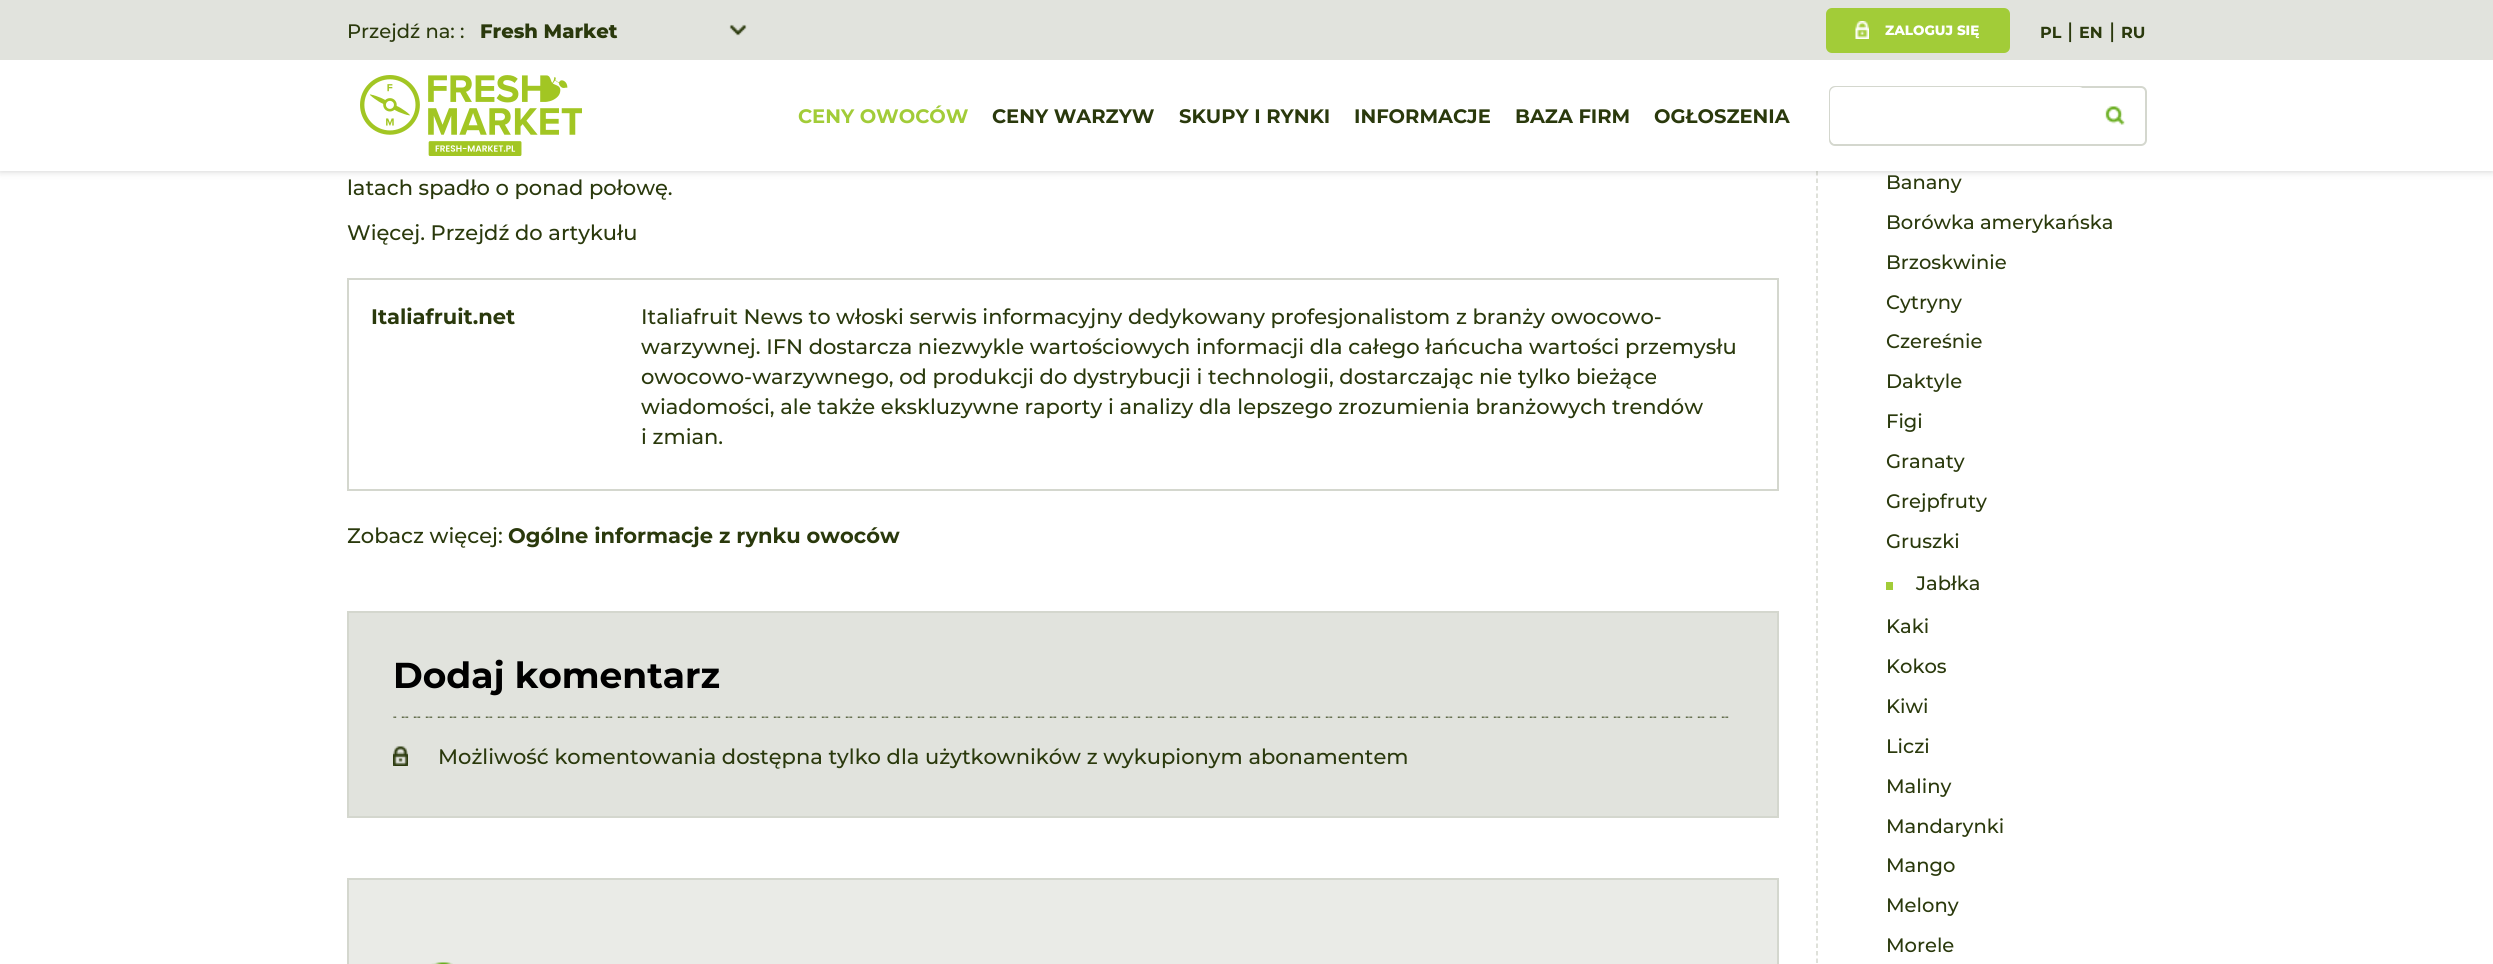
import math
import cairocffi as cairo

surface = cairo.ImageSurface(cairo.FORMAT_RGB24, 2493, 964)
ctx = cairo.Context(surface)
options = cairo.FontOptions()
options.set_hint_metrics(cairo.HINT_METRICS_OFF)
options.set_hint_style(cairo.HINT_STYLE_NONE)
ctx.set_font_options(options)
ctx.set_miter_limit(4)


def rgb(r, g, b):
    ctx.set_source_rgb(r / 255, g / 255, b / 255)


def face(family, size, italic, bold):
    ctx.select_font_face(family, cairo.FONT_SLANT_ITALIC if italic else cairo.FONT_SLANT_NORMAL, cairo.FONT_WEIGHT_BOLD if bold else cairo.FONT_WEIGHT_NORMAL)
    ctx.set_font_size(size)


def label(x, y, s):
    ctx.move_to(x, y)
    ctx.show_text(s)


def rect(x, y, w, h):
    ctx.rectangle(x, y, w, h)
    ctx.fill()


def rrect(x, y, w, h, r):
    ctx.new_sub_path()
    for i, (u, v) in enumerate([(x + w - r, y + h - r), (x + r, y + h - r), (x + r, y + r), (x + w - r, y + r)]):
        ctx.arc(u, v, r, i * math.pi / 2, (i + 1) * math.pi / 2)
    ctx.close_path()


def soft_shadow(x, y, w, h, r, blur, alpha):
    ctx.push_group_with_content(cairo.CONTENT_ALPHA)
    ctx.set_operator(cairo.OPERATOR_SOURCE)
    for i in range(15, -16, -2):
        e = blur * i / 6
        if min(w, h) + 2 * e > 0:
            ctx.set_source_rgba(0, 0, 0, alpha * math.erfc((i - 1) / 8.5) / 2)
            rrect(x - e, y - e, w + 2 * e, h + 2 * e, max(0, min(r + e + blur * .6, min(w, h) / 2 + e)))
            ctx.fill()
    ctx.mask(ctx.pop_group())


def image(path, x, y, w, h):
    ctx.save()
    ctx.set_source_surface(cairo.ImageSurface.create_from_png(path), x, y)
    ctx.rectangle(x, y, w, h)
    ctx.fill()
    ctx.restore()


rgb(255, 255, 255)
ctx.paint()
ctx.new_path()
ctx.move_to(1817, -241.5)
ctx.line_to(1817, 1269)
rgb(212, 215, 206)
ctx.set_line_width(1.5)
ctx.set_dash([4.5, 3])
ctx.stroke()
rgb(0, 0, 0)
soft_shadow(0, 0, 2493, 171, 0, 4, 0.2)
rgb(255, 255, 255)
rect(0, 60, 2493, 111)
rgb(225, 227, 221)
rect(0, 0, 2493, 60)
face('Montserrat Medium', 19.5, 0, 0)
rgb(42, 57, 12)
label(347, 38, 'Przejdź na: :')
image('image0.png', 729, 24, 18, 12)
face('Montserrat ExtraBold', 19.5, 0, 0)
label(480, 38, 'Fresh Market')
rgb(162, 204, 56)
rrect(1826, 8, 184, 45, 6)
ctx.fill()
image('image1.png', 1855, 21, 14, 18)
face('Montserrat ExtraBold', 13.5, 0, 0)
rgb(255, 255, 255)
label(1885, 35, 'ZALOGUJ SIĘ')
face('Montserrat', 16, 0, 1)
rgb(42, 57, 12)
label(2040, 38, 'PL')
face('Montserrat Medium', 21, 0, 0)
label(2067, 38, '|')
face('Montserrat', 16, 0, 1)
label(2079, 38, 'EN')
face('Montserrat Medium', 21, 0, 0)
label(2109, 38, '|')
face('Montserrat', 16, 0, 1)
label(2121, 38, 'RU')
image('image2.png', 360, 75, 222, 81)
face('Montserrat', 19.5, 0, 1)
rgb(162, 204, 56)
label(798, 123, 'CENY OWOCÓW')
rgb(42, 57, 12)
label(992, 123, 'CENY WARZYW')
label(1179, 123, 'SKUPY I RYNKI')
label(1354, 123, 'INFORMACJE')
label(1515, 123, 'BAZA FIRM')
label(1654, 123, 'OGŁOSZENIA')
rrect(1830, 87, 316, 58, 5)
rgb(212, 215, 206)
ctx.set_line_width(2)
ctx.set_dash([])
ctx.stroke()
rgb(255, 255, 255)
rrect(1830, 87, 255, 57, 6)
ctx.fill()
image('image3.png', 2105, 106, 20, 19)
face('Montserrat Medium', 21, 0, 0)
rgb(42, 57, 12)
label(347, 195, 'latach spadło o ponad połowę.')
label(347, 240, 'Więcej. Przejdź do artykułu')
ctx.rectangle(348, 279, 1430, 211)
rgb(212, 215, 206)
ctx.stroke()
face('Montserrat', 21, 0, 1)
rgb(42, 57, 12)
label(371, 324, 'Italiafruit.net')
face('Montserrat Medium', 21, 0, 0)
label(641, 324, 'Italiafruit News to włoski serwis informacyjny dedykowany profesjonalistom z branży owocowo-')
label(641, 354, 'warzywnej. IFN dostarcza niezwykle wartościowych informacji dla całego łańcucha wartości przemysłu')
label(641, 384, 'owocowo-warzywnego, od produkcji do dystrybucji i technologii, dostarczając nie tylko bieżące')
label(641, 414, 'wiadomości, ale także ekskluzywne raporty i analizy dla lepszego zrozumienia branżowych trendów')
label(641, 444, 'i zmian.')
label(347, 543, 'Zobacz więcej:')
face('Montserrat', 21, 0, 1)
label(508, 543, 'Ogólne informacje z rynku owoców')
rgb(225, 227, 221)
ctx.rectangle(348, 612, 1430, 205)
ctx.fill_preserve()
rgb(212, 215, 206)
ctx.stroke()
face('Montserrat', 36, 0, 1)
rgb(0, 0, 0)
label(393, 688, 'Dodaj komentarz')
image('image4.png', 393, 716, 1336, 2)
image('image5.png', 393, 746, 15, 20)
face('Montserrat Medium', 21, 0, 0)
rgb(42, 57, 12)
label(438, 764, 'Możliwość komentowania dostępna tylko dla użytkowników z wykupionym abonamentem')
rgb(234, 235, 231)
ctx.rectangle(348, 879, 1430, 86)
ctx.fill_preserve()
rgb(212, 215, 206)
ctx.stroke()
image('image6.png', 431, 962, 22, 2)
face('Montserrat Medium', 19.5, 0, 0)
rgb(42, 57, 12)
label(1886, 189, 'Banany')
label(1886, 229, 'Borówka amerykańska')
label(1886, 269, 'Brzoskwinie')
label(1886, 309, 'Cytryny')
label(1886, 348, 'Czereśnie')
label(1886, 388, 'Daktyle')
label(1886, 428, 'Figi')
label(1886, 468, 'Granaty')
label(1886, 508, 'Grejpfruty')
label(1886, 548, 'Gruszki')
rgb(162, 204, 56)
rect(1886, 582, 7, 8)
rgb(42, 57, 12)
label(1916, 590, 'Jabłka')
label(1886, 633, 'Kaki')
label(1886, 673, 'Kokos')
label(1886, 713, 'Kiwi')
label(1886, 753, 'Liczi')
label(1886, 793, 'Maliny')
label(1886, 833, 'Mandarynki')
label(1886, 872, 'Mango')
label(1886, 912, 'Melony')
label(1886, 952, 'Morele')
surface.write_to_png('render.png')
